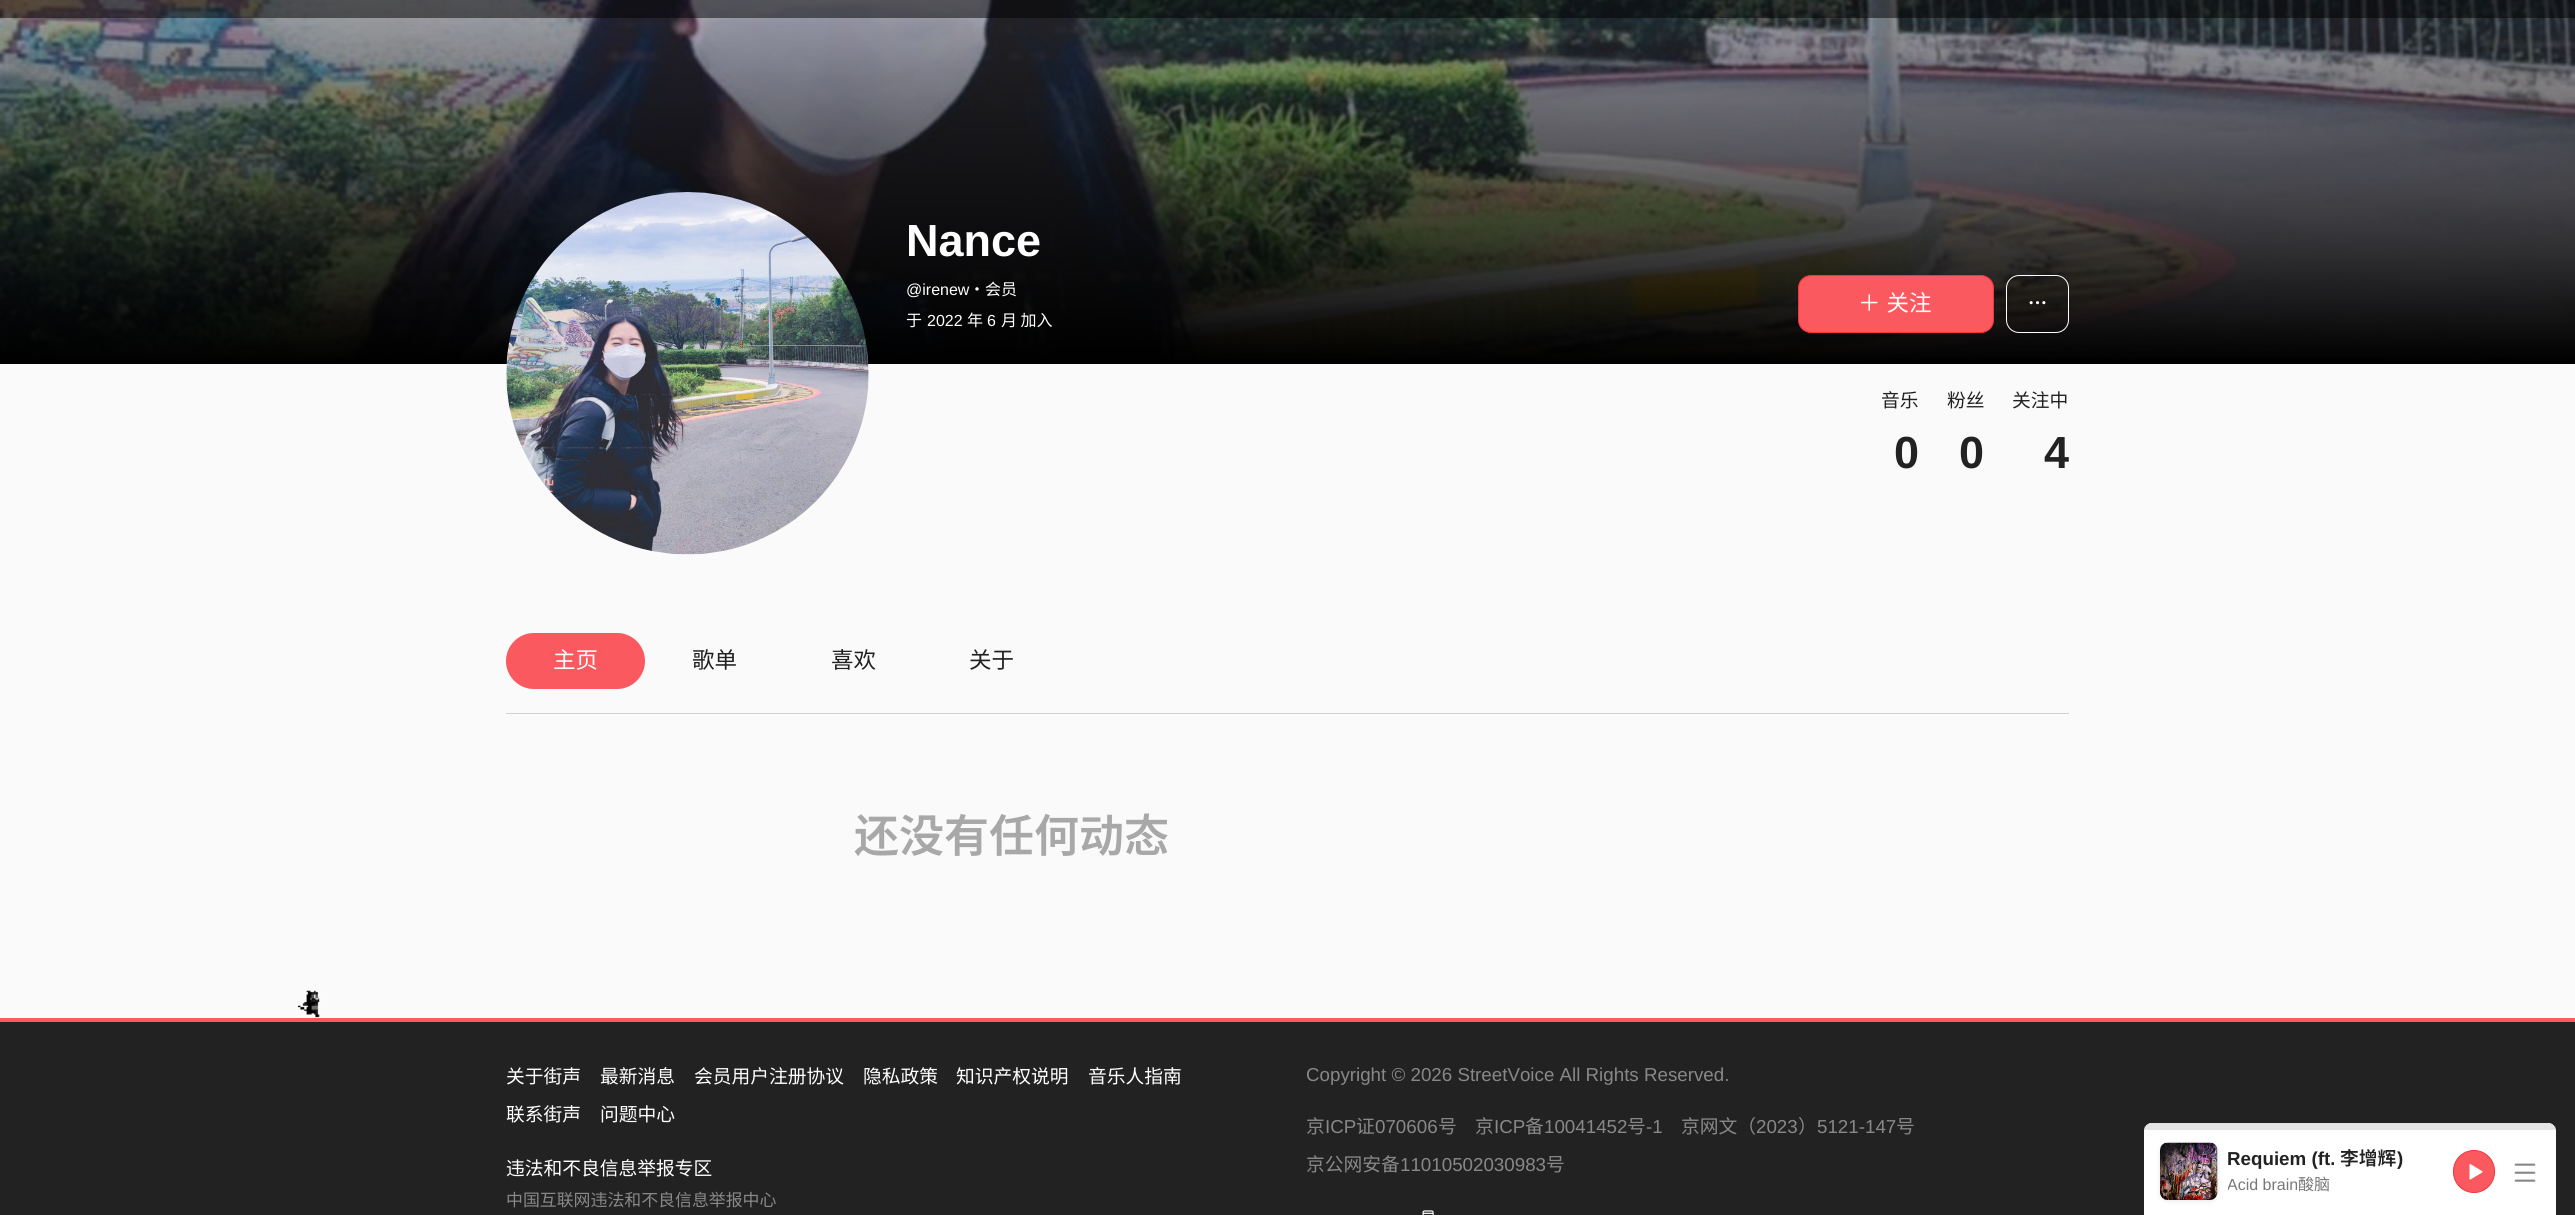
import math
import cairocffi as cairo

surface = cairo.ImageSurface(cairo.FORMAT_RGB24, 2575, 1215)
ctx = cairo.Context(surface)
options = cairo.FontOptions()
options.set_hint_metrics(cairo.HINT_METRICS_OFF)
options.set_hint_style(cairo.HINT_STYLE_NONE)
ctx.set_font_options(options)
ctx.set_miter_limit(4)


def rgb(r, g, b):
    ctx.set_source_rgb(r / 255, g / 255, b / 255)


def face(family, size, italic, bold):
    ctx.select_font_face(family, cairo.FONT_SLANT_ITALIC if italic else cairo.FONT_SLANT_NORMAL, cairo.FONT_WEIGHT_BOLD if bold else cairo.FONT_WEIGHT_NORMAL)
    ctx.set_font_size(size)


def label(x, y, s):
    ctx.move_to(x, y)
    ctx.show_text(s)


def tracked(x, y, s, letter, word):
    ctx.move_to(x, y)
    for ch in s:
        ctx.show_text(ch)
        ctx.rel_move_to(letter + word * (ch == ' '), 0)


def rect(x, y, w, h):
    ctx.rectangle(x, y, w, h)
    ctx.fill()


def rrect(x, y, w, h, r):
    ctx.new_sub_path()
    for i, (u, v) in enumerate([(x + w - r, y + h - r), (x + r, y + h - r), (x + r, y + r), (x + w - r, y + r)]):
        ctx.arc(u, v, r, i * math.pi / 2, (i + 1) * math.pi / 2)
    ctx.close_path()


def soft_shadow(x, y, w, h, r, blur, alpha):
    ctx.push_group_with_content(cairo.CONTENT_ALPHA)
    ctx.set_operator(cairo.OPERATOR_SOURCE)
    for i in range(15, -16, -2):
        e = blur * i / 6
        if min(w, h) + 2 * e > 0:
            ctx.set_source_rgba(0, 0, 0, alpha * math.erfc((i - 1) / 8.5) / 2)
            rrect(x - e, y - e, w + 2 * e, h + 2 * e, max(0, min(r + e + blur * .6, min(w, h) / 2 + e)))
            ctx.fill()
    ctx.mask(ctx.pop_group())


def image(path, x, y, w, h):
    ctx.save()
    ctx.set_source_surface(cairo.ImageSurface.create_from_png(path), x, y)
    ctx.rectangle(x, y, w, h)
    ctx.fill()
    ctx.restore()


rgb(250, 250, 250)
ctx.paint()
image('image0.png', 0, 0, 2575, 361)
gradient = cairo.LinearGradient(1288, -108, 1288, 364)
gradient.add_color_stop_rgba(0, 0, 0, 0, 0)
gradient.add_color_stop_rgba(1, 0, 0, 0, 1)
ctx.set_source(gradient)
rect(0, 0, 2575, 364)
ctx.set_source_rgba(0, 0, 0, 0.5)
rect(0, 0, 2575, 18)
image('image1.png', 506, 192, 363, 363)
face('Liberation Sans', 45, 0, 1)
rgb(255, 255, 255)
label(906, 256, 'Nance')
face('Liberation Sans', 16, 0, 0)
label(906, 295, '@irenew')
face('Noto Sans SC', 16, 0, 0)
label(969, 295, '・会员')
label(906, 326, '于')
face('Liberation Sans', 16, 0, 0)
label(927, 326, '2022')
face('Noto Sans SC', 16, 0, 0)
label(967, 326, '年')
face('Liberation Sans', 16, 0, 0)
label(987, 326, '6')
face('Noto Sans SC', 16, 0, 0)
label(1001, 326, '月 加入')
rgb(249, 89, 95)
rrect(1798.5, 275.5, 195, 57, 12.5)
ctx.fill_preserve()
rgb(248, 52, 59)
ctx.set_line_width(1)
ctx.stroke()
face('Noto Sans SC', 22.5, 0, 0)
rgb(255, 255, 255)
tracked(1858, 311, '＋ 关注', 0, 1)
rrect(2006.5, 275.5, 62, 57, 12.5)
ctx.stroke()
image('image2.png', 2029, 301, 17, 4)
face('Noto Sans SC', 18.75, 0, 0)
rgb(34, 34, 34)
label(1881, 407, '音乐')
face('Liberation Sans', 45, 0, 1)
label(1894, 468, '0')
face('Noto Sans SC', 18.75, 0, 0)
label(1947, 407, '粉丝')
face('Liberation Sans', 45, 0, 1)
label(1959, 468, '0')
face('Noto Sans SC', 18.75, 0, 0)
label(2012, 407, '关注中')
face('Liberation Sans', 45, 0, 1)
label(2044, 468, '4')
rgb(249, 89, 95)
rrect(506, 633, 139, 56, 28)
ctx.fill()
face('Noto Sans SC', 22.5, 0, 0)
rgb(255, 255, 255)
label(553, 668, '主页')
rgb(34, 34, 34)
label(692, 668, '歌单')
label(831, 668, '喜欢')
label(969, 668, '关于')
rgb(210, 210, 210)
rect(506, 713, 1563, 1)
face('Noto Sans SC SemiBold', 45, 0, 0)
rgb(168, 168, 168)
label(854, 852, '还没有任何动态')
rgb(34, 34, 34)
rect(0, 1022, 2575, 193)
rgb(249, 89, 95)
rect(0, 1018, 2575, 4)
image('image3.png', 298, 990, 23, 28)
face('Noto Sans SC', 18.75, 0, 0)
rgb(255, 255, 255)
label(506, 1083, '关于街声')
label(600, 1083, '最新消息')
label(694, 1083, '会员用户注册协议')
label(863, 1083, '隐私政策')
label(956, 1083, '知识产权说明')
label(1088, 1083, '音乐人指南')
label(506, 1121, '联系街声')
label(600, 1121, '问题中心')
label(506, 1175, '违法和不良信息举报专区')
face('Noto Sans SC', 16.9, 0, 0)
rgb(136, 136, 136)
label(506, 1206, '中国互联网违法和不良信息举报中心')
face('Liberation Sans', 18.75, 0, 0)
label(1306, 1081, 'Copyright © 2026 StreetVoice All Rights Reserved.')
face('Noto Sans SC', 18.75, 0, 0)
label(1306, 1133, '京')
face('Liberation Sans', 18.75, 0, 0)
label(1325, 1133, 'ICP')
face('Noto Sans SC', 18.75, 0, 0)
label(1356, 1133, '证')
face('Liberation Sans', 18.75, 0, 0)
label(1375, 1133, '070606')
face('Noto Sans SC', 18.75, 0, 0)
label(1438, 1133, '号')
label(1475, 1133, '京')
face('Liberation Sans', 18.75, 0, 0)
label(1494, 1133, 'ICP')
face('Noto Sans SC', 18.75, 0, 0)
label(1525, 1133, '备')
face('Liberation Sans', 18.75, 0, 0)
label(1544, 1133, '10041452')
face('Noto Sans SC', 18.75, 0, 0)
label(1627, 1133, '号')
face('Liberation Sans', 18.75, 0, 0)
label(1646, 1133, '-1')
face('Noto Sans SC', 18.75, 0, 0)
label(1681, 1133, '京网文（')
face('Liberation Sans', 18.75, 0, 0)
label(1756, 1133, '2023')
face('Noto Sans SC', 18.75, 0, 0)
label(1798, 1133, '）')
face('Liberation Sans', 18.75, 0, 0)
label(1817, 1133, '5121-147')
face('Noto Sans SC', 18.75, 0, 0)
label(1896, 1133, '号')
label(1306, 1171, '京公网安备')
face('Liberation Sans', 18.75, 0, 0)
label(1400, 1171, '11010502030983')
face('Noto Sans SC', 18.75, 0, 0)
label(1546, 1171, '号')
image('image4.png', 1422, 1210, 12, 5)
rgb(255, 255, 255)
ctx.new_path()
ctx.move_to(2152, 1123)
ctx.line_to(2548, 1123)
ctx.curve_to(2552.5, 1123, 2556, 1126.5, 2556, 1131)
ctx.line_to(2556, 1215)
ctx.line_to(2144, 1215)
ctx.line_to(2144, 1131)
ctx.curve_to(2144, 1126.5, 2147.5, 1123, 2152, 1123)
ctx.close_path()
ctx.fill()
ctx.set_source_rgba(1, 1, 1, 0.1)
rect(2555, 1126, 1, 4)
rect(2144, 1126, 1, 4)
rgb(228, 228, 228)
ctx.new_path()
ctx.move_to(2152, 1123)
ctx.line_to(2548, 1123)
ctx.curve_to(2552, 1123, 2555, 1126, 2555, 1130)
ctx.line_to(2145, 1130)
ctx.curve_to(2145, 1126, 2148, 1123, 2152, 1123)
ctx.close_path()
ctx.fill()
rgb(0, 0, 0)
soft_shadow(2160, 1144, 58, 57, 8, 2.5, 0.1)
image('image5.png', 2160, 1142, 58, 58)
face('Liberation Sans', 18.75, 0, 1)
rgb(34, 34, 34)
label(2227, 1165, 'Requiem (ft.')
face('Noto Sans SC SemiBold', 18.75, 0, 0)
label(2340, 1165, '李增辉')
face('Liberation Sans', 18.75, 0, 1)
label(2397, 1165, ')')
ctx.save()
ctx.rectangle(2228, 1175, 206, 21)
ctx.clip()
face('Liberation Sans', 16, 0, 0)
rgb(120, 120, 120)
label(2227, 1190, 'Acid brain')
ctx.restore()
face('Noto Sans SC', 16, 0, 0)
rgb(120, 120, 120)
label(2298, 1190, '酸脑')
rgb(249, 89, 95)
rrect(2453.5, 1150.5, 41, 42, 20.5)
ctx.fill_preserve()
rgb(248, 52, 59)
ctx.stroke()
image('image6.png', 2469, 1164, 14, 16)
image('image7.png', 2514, 1163, 22, 19)
surface.write_to_png('render.png')
